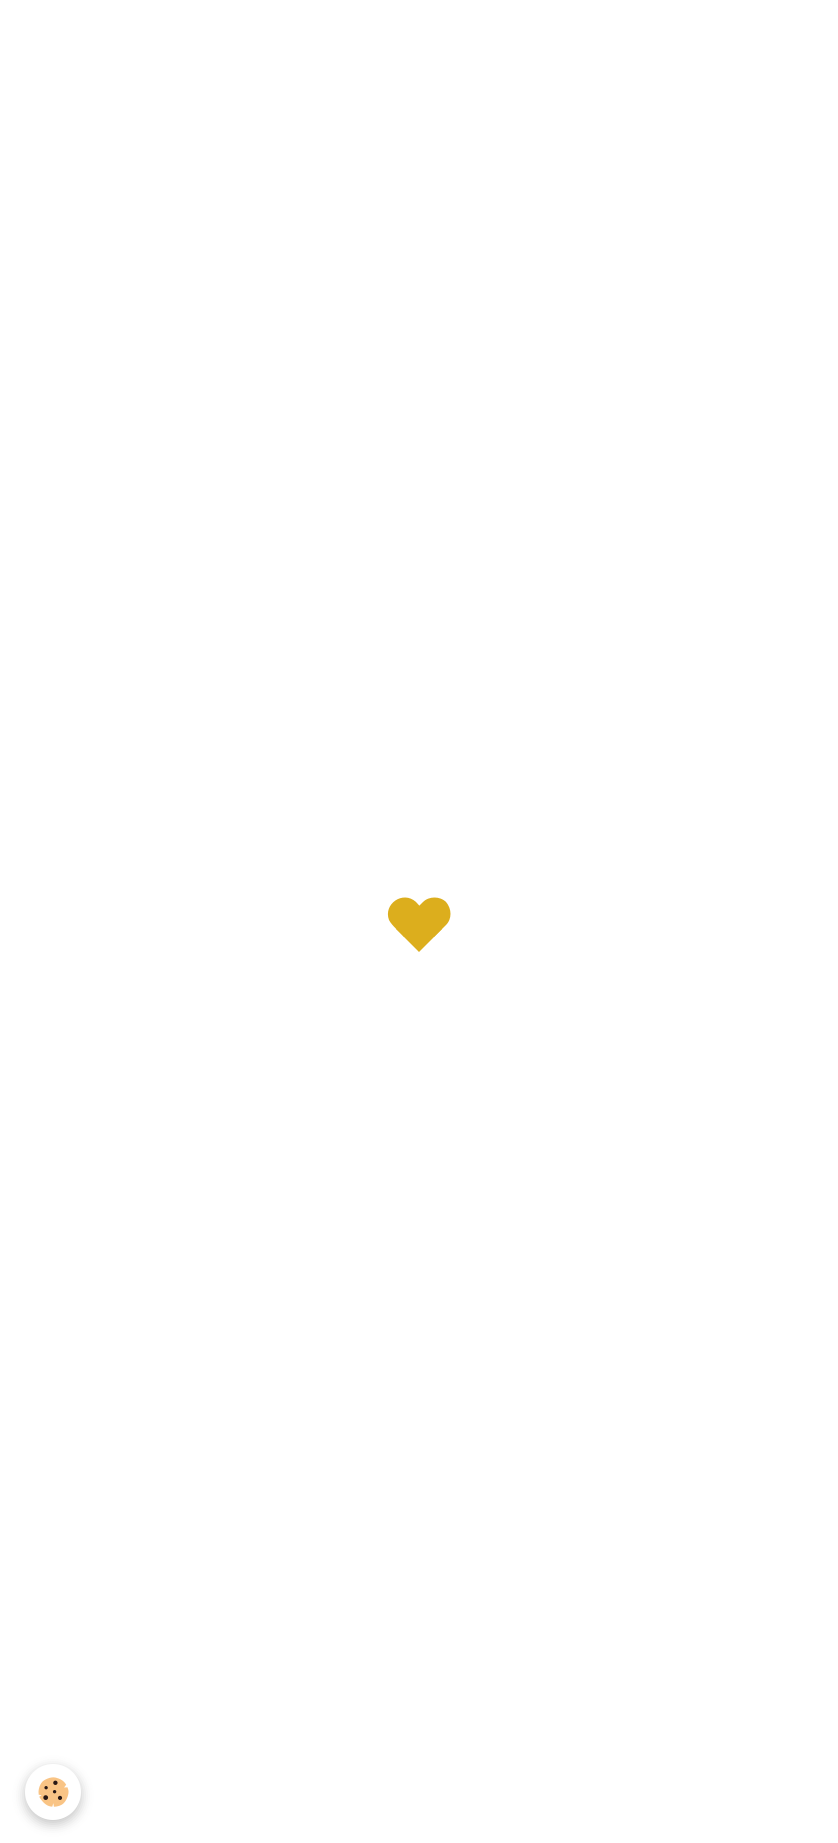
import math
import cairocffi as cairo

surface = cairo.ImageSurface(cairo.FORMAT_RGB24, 838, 1843)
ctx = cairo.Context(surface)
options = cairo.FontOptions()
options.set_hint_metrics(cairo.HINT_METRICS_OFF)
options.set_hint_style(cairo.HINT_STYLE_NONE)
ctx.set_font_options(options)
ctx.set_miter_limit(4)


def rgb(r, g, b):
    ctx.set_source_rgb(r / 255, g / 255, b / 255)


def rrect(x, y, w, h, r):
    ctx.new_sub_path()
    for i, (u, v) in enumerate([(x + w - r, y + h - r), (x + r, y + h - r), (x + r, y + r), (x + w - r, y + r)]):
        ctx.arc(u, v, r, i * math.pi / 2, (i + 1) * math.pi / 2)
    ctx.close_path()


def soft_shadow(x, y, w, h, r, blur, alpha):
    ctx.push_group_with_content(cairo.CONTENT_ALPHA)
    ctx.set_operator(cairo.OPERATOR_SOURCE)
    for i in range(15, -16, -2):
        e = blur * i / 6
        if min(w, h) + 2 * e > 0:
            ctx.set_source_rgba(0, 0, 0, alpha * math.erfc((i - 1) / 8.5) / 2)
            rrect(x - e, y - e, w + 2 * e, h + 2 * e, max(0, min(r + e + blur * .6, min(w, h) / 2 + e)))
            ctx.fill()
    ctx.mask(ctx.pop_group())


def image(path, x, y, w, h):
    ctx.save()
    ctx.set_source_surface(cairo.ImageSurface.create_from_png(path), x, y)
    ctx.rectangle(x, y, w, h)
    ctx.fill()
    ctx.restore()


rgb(255, 255, 255)
ctx.paint()
rgb(220, 174, 29)
ctx.new_path()
ctx.move_to(419, 906)
ctx.line_to(442, 929)
ctx.line_to(419, 952)
ctx.line_to(396, 929)
ctx.close_path()
ctx.fill()
ctx.new_path()
ctx.move_to(416, 902)
ctx.line_to(427, 914)
ctx.line_to(404, 937)
ctx.curve_to(400, 932, 392, 926, 389, 920)
ctx.curve_to(383, 904, 403, 890, 416, 902)
ctx.close_path()
ctx.fill()
ctx.new_path()
ctx.move_to(446, 902)
ctx.curve_to(452, 909, 452, 919, 446, 925)
ctx.line_to(434, 937)
ctx.line_to(411, 914)
ctx.line_to(423, 902)
ctx.curve_to(429, 896, 440, 896, 446, 902)
ctx.close_path()
ctx.fill()
rgb(0, 0, 0)
soft_shadow(25, 1768, 56, 56, 28, 6, 0.24)
rgb(255, 255, 255)
ctx.arc(53, 1792, 28, 0, 2 * math.pi)
ctx.fill()
image('image0.png', 38, 1777, 31, 30)
surface.write_to_png('render.png')
